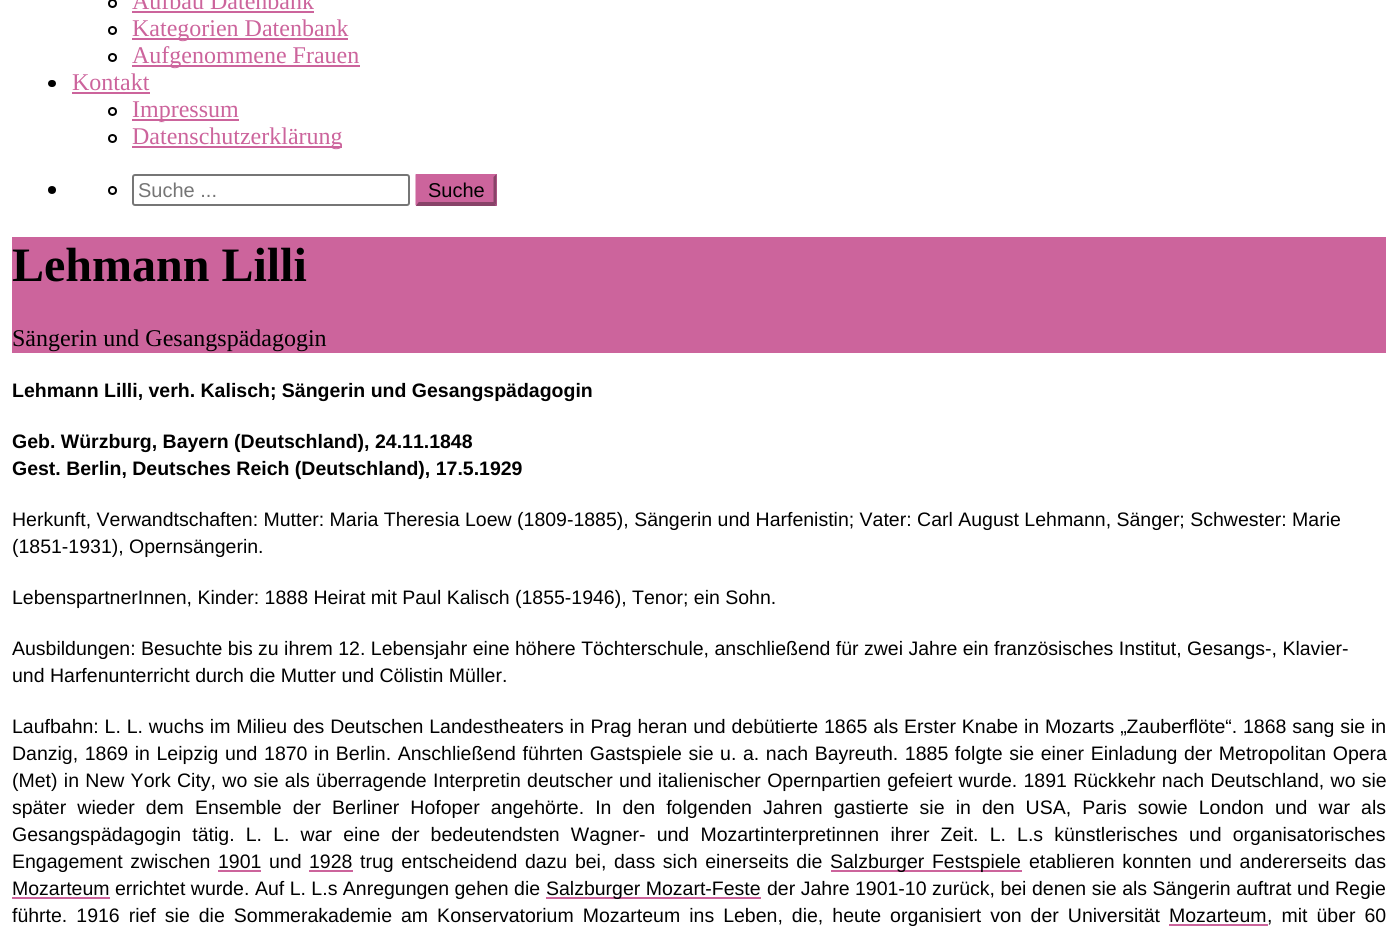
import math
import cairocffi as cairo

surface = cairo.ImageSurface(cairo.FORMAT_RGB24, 1397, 927)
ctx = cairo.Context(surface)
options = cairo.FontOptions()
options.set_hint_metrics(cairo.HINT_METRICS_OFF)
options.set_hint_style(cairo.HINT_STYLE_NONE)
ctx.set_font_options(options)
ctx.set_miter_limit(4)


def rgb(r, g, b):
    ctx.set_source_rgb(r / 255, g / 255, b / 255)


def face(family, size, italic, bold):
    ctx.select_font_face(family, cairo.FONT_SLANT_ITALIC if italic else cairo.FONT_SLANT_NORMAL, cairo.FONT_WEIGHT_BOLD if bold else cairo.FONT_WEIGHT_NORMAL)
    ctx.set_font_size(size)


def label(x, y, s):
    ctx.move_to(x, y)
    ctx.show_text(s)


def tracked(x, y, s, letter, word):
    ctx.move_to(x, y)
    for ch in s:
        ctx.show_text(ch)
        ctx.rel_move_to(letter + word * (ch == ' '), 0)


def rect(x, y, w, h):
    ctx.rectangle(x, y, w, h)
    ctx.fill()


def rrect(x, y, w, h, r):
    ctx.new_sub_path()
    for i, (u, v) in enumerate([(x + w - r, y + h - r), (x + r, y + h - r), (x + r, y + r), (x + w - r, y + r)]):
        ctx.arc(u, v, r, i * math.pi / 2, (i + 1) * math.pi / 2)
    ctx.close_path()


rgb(255, 255, 255)
ctx.paint()
ctx.arc(112.5, 3.5, 3.5, 0, 2 * math.pi)
rgb(0, 0, 0)
ctx.stroke()
face('Liberation Serif', 24, 0, 0)
rgb(204, 100, 156)
label(132, 9, 'Aufbau Datenbank')
rect(132, 11, 182, 2)
ctx.new_path()
ctx.arc(112.5, 30.5, 3.5, 0, 2 * math.pi)
rgb(0, 0, 0)
ctx.stroke()
rgb(204, 100, 156)
rect(132, 38, 216, 2)
label(132, 36, 'Kategorien Datenbank')
ctx.new_path()
ctx.arc(112.5, 57.5, 3.5, 0, 2 * math.pi)
rgb(0, 0, 0)
ctx.stroke()
rgb(204, 100, 156)
rect(132, 65, 228, 2)
label(132, 63, 'Aufgenommene Frauen')
rgb(0, 0, 0)
rrect(48, 80, 8, 7, 3.5)
ctx.fill()
rgb(204, 100, 156)
label(72, 90, 'Kontakt')
rect(72, 92, 78, 2)
ctx.new_path()
ctx.arc(112.5, 111.5, 3.5, 0, 2 * math.pi)
rgb(0, 0, 0)
ctx.stroke()
rgb(204, 100, 156)
rect(132, 119, 107, 2)
label(132, 117, 'Impressum')
ctx.new_path()
ctx.arc(112.5, 138.5, 3.5, 0, 2 * math.pi)
rgb(0, 0, 0)
ctx.stroke()
rgb(204, 100, 156)
rect(132, 146, 210, 2)
label(132, 144, 'Datenschutzerklärung')
rgb(0, 0, 0)
ctx.new_path()
ctx.arc(52, 190, 4, 0, 2 * math.pi)
ctx.fill()
ctx.arc(112.5, 190.5, 3.5, 0, 2 * math.pi)
ctx.stroke()
rrect(133, 175, 276, 30, 2)
rgb(118, 118, 118)
ctx.stroke()
face('Liberation Sans', 20, 0, 0)
rgb(117, 117, 117)
label(138, 197, 'Suche ...')
rgb(204, 100, 156)
rect(416, 174, 81, 32)
rgb(136, 67, 104)
ctx.new_path()
ctx.move_to(496.5, 174)
ctx.line_to(496.5, 205.5)
ctx.line_to(493.5, 202.5)
ctx.line_to(493.5, 177)
ctx.close_path()
ctx.fill()
ctx.new_path()
ctx.move_to(496, 206)
ctx.line_to(416, 206)
ctx.line_to(418, 202)
ctx.line_to(494, 202)
ctx.close_path()
ctx.fill()
rgb(204, 100, 156)
ctx.new_path()
ctx.move_to(415.5, 205.5)
ctx.line_to(415.5, 174)
ctx.line_to(418.5, 177)
ctx.line_to(418.5, 202.5)
ctx.close_path()
ctx.fill()
rgb(0, 0, 0)
label(428, 197, 'Suche')
rgb(204, 100, 156)
rect(12, 237, 1374, 116)
face('Liberation Serif', 48, 0, 1)
rgb(0, 0, 0)
label(12, 281, 'Lehmann Lilli')
face('Liberation Serif', 24, 0, 0)
label(12, 346, 'Sängerin und Gesangspädagogin')
face('Liberation Sans', 19.5, 0, 1)
label(12, 397, 'Lehmann Lilli, verh. Kalisch; Sängerin und Gesangspädagogin')
label(12, 448, 'Geb. Würzburg, Bayern (Deutschland), 24.11.1848')
label(12, 475, 'Gest. Berlin, Deutsches Reich (Deutschland), 17.5.1929')
face('Liberation Sans', 19.5, 0, 0)
label(12, 526, 'Herkunft, Verwandtschaften: Mutter: Maria Theresia Loew (1809-1885), Sängerin und Harfenistin; Vater: Carl August Lehmann, Sänger; Schwester: Marie')
label(12, 553, '(1851-1931), Opernsängerin.')
label(12, 604, 'LebenspartnerInnen, Kinder: 1888 Heirat mit Paul Kalisch (1855-1946), Tenor; ein Sohn.')
label(12, 655, 'Ausbildungen: Besuchte bis zu ihrem 12. Lebensjahr eine höhere Töchterschule, anschließend für zwei Jahre ein französisches Institut, Gesangs-, Klavier-')
label(12, 682, 'und Harfenunterricht durch die Mutter und Cölistin Müller.')
tracked(12, 733, 'Laufbahn: L. L. wuchs im Milieu des Deutschen Landestheaters in Prag heran und debütierte 1865 als Erster Knabe in Mozarts „Zauberflöte“. 1868 sang sie in', 0, 0.4)
tracked(12, 760, 'Danzig, 1869 in Leipzig und 1870 in Berlin. Anschließend führten Gastspiele sie u. a. nach Bayreuth. 1885 folgte sie einer Einladung der Metropolitan Opera', 0, 1.2)
tracked(12, 787, '(Met) in New York City, wo sie als überragende Interpretin deutscher und italienischer Opernpartien gefeiert wurde. 1891 Rückkehr nach Deutschland, wo sie', 0, 0.9)
tracked(12, 814, 'später wieder dem Ensemble der Berliner Hofoper angehörte. In den folgenden Jahren gastierte sie in den USA, Paris sowie London und war als', 0, 5.7)
tracked(12, 841, 'Gesangspädagogin tätig. L. L. war eine der bedeutendsten Wagner- und Mozartinterpretinnen ihrer Zeit. L. L.s künstlerisches und organisatorisches', 0, 5.75)
tracked(12, 868, 'Engagement zwischen', 0, 2.25)
label(218, 868, '1901')
rgb(204, 100, 156)
rect(218, 870, 43, 2)
rgb(0, 0, 0)
label(269, 868, 'und')
label(309, 868, '1928')
rgb(204, 100, 156)
rect(309, 870, 44, 2)
rgb(0, 0, 0)
tracked(360, 868, 'trug entscheidend dazu bei, dass sich einerseits die', 0, 2.25)
rgb(204, 100, 156)
rect(831, 870, 191, 2)
rgb(0, 0, 0)
tracked(830, 868, 'Salzburger Festspiele', 0, 2.25)
tracked(1029, 868, 'etablieren konnten und andererseits das', 0, 2.25)
label(12, 895, 'Mozarteum errichtet wurde.')
rgb(204, 100, 156)
rect(12, 897, 98, 2)
rgb(0, 0, 0)
label(255, 895, 'Auf L. L.s Anregungen gehen die')
rgb(204, 100, 156)
rect(546, 897, 215, 2)
rgb(0, 0, 0)
label(546, 895, 'Salzburger Mozart-Feste')
tracked(767, 895, 'der Jahre 1901-10 zurück, bei denen sie als Sängerin auftrat und Regie', 0, 0.1)
tracked(12, 922, 'führte. 1916 rief sie die Sommerakademie am Konservatorium Mozarteum ins Leben, die, heute organisiert von der Universität', 0, 3.6)
label(1169, 922, 'Mozarteum')
tracked(1267, 922, ', mit über 60', 0, 3.6)
rgb(204, 100, 156)
rect(1169, 924, 99, 2)
surface.write_to_png('render.png')
